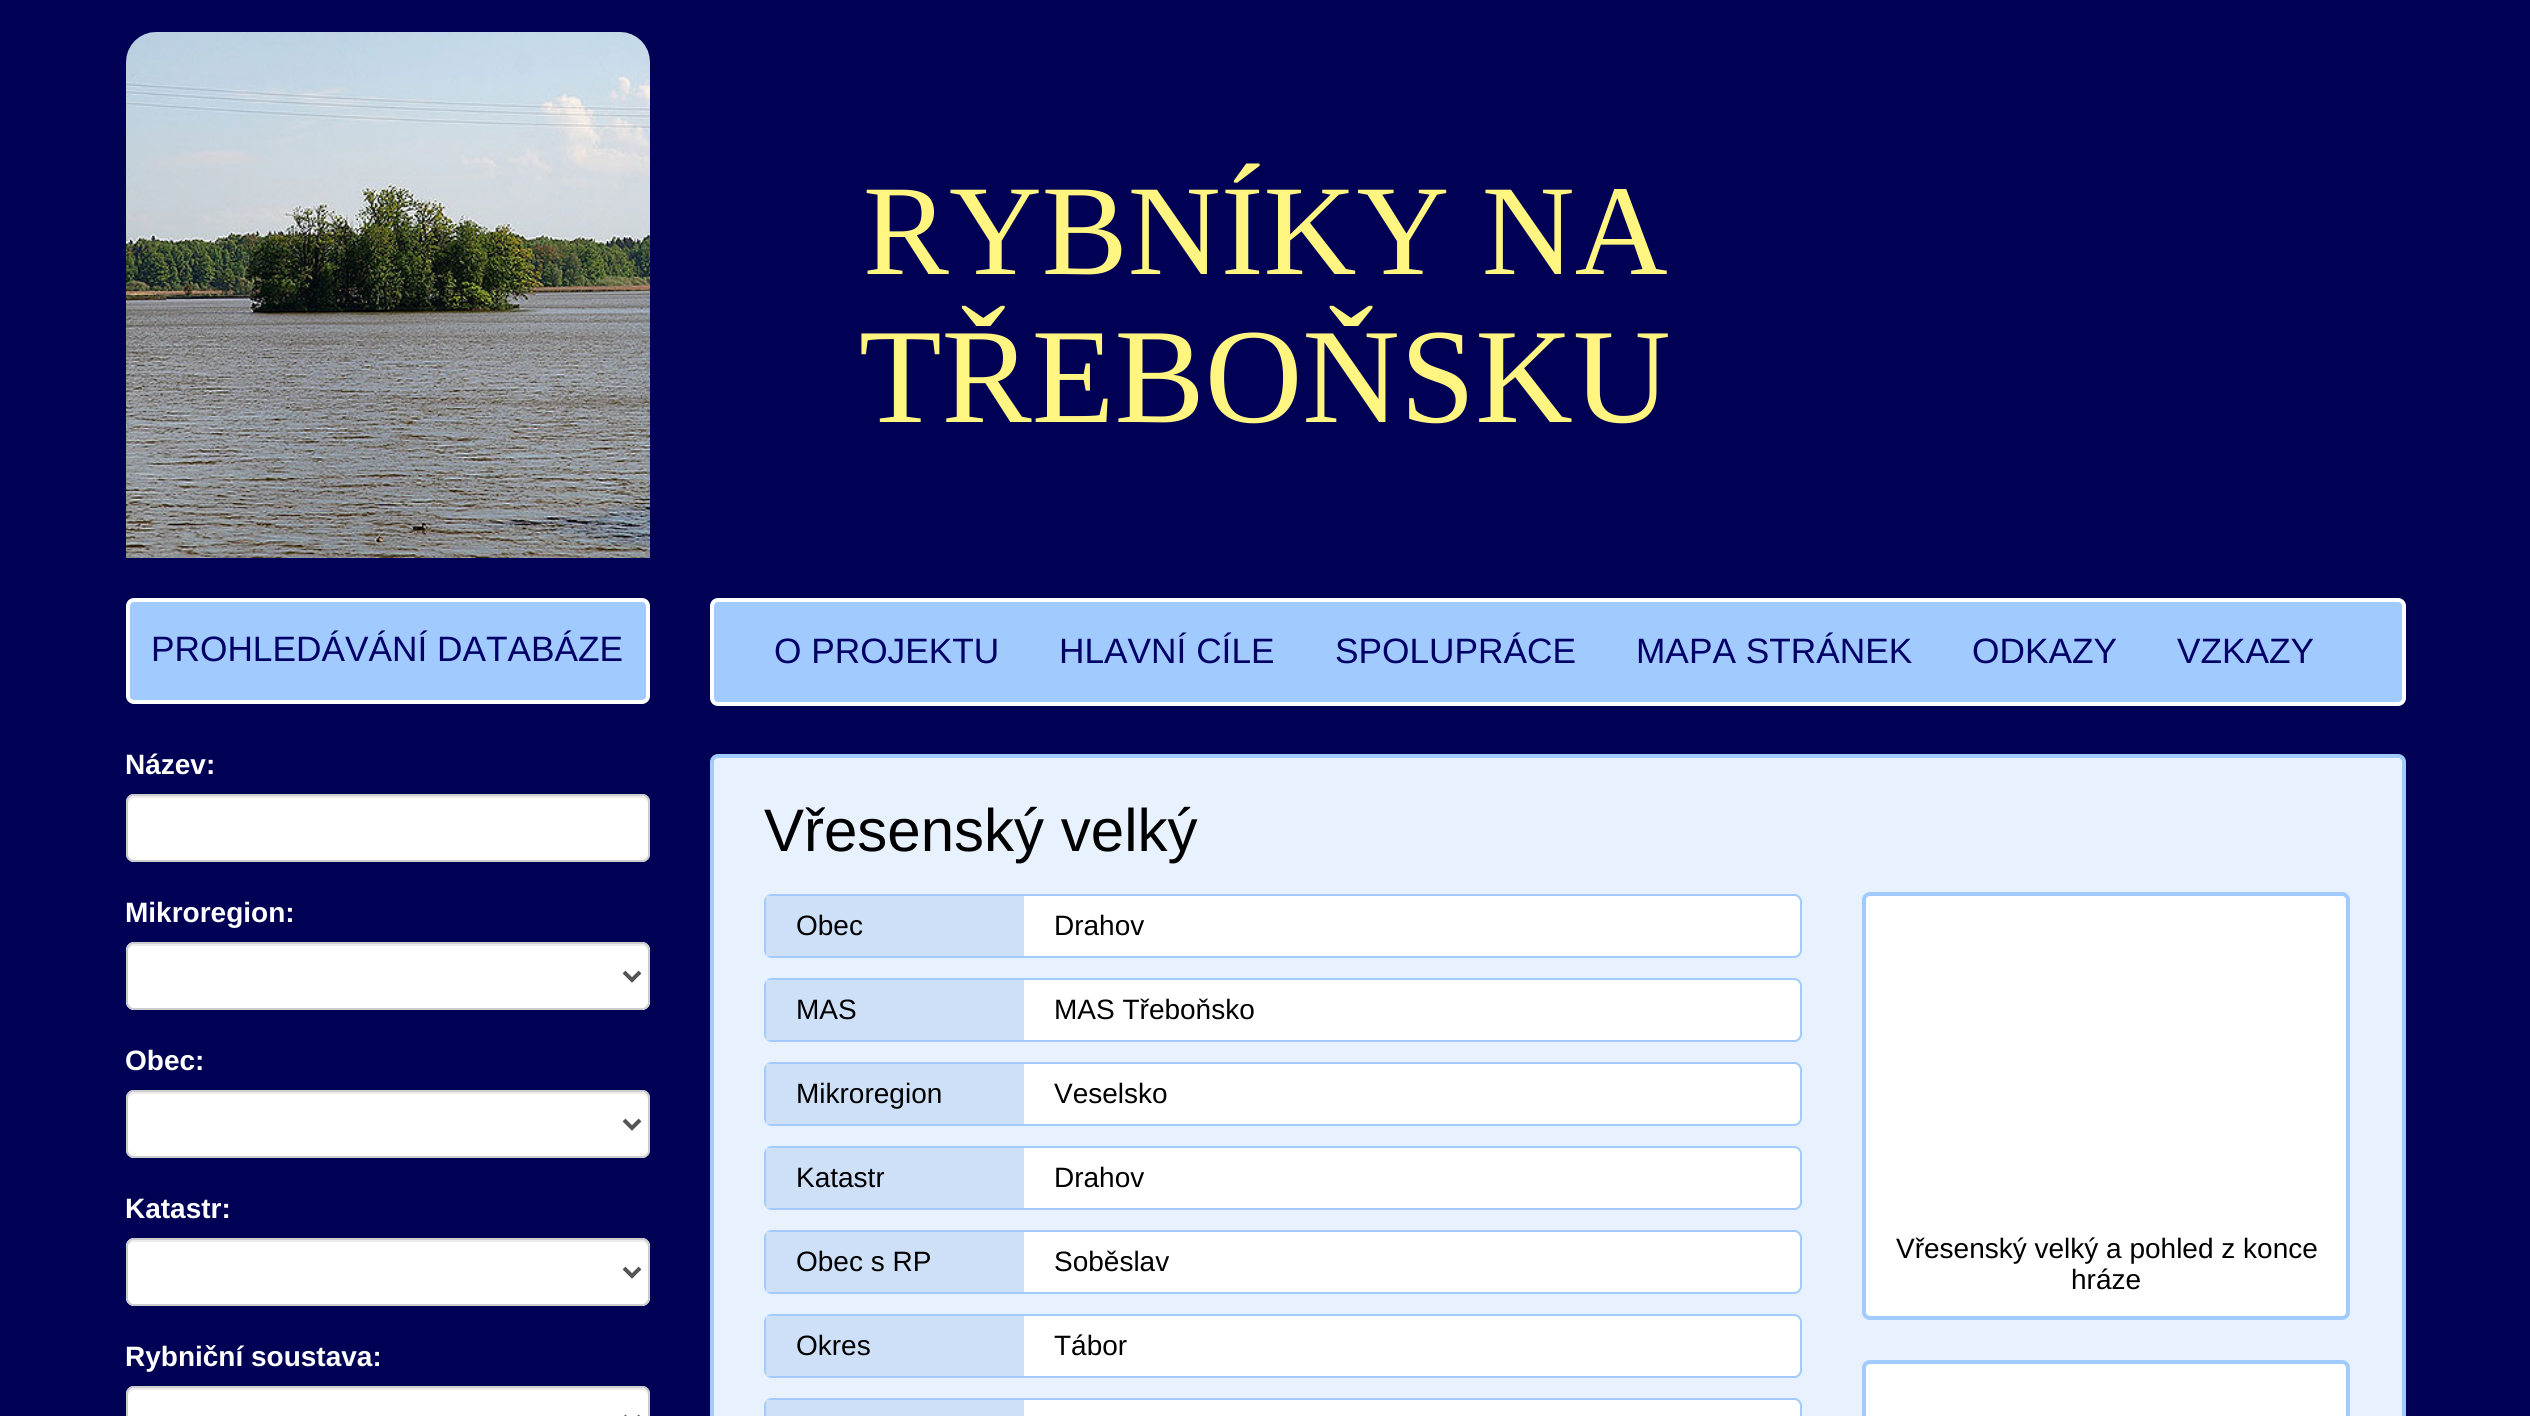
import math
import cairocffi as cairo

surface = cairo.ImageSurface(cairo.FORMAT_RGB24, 2530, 1416)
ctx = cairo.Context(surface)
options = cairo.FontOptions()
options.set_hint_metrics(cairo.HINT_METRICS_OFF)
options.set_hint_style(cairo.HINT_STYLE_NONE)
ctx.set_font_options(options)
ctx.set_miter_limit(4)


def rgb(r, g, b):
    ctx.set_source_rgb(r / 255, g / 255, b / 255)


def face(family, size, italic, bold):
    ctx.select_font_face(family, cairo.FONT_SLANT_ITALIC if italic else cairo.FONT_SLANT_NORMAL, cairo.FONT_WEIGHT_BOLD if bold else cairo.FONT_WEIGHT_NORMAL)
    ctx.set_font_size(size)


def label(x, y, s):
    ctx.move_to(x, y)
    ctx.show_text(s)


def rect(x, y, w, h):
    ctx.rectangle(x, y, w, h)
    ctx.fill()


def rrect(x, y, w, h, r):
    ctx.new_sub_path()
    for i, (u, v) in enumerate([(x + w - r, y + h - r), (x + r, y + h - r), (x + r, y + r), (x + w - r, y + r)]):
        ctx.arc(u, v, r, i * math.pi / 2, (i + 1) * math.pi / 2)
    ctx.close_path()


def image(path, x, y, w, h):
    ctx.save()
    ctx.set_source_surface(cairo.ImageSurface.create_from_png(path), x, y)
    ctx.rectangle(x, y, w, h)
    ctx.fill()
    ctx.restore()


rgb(0, 0, 85)
ctx.paint()
image('image0.png', 126, 32, 524, 526)
face('Liberation Serif', 128.75, 0, 0)
rgb(255, 245, 128)
label(863, 274, 'RYBNÍKY NA')
face('Liberation Serif', 135.25, 0, 0)
label(859, 422, 'TŘEBOŇSKU')
rgb(161, 203, 255)
rrect(128, 600, 520, 102, 6)
ctx.fill_preserve()
rgb(255, 255, 255)
ctx.set_line_width(4)
ctx.stroke()
face('Liberation Sans', 35.25, 0, 0)
rgb(0, 0, 102)
label(151, 661, 'PROHLEDÁVÁNÍ DATABÁZE')
face('Liberation Sans', 28, 0, 1)
rgb(255, 255, 255)
label(125, 774, 'Název:')
rrect(126, 794, 524, 68, 8)
ctx.fill()
rgb(236, 236, 236)
ctx.new_path()
ctx.move_to(134, 798)
ctx.line_to(642, 798)
ctx.curve_to(645, 798, 648, 801, 648, 804)
ctx.line_to(648, 802)
ctx.curve_to(648, 799, 645, 796, 642, 796)
ctx.line_to(134, 796)
ctx.curve_to(131, 796, 128, 799, 128, 802)
ctx.line_to(128, 804)
ctx.curve_to(128, 801, 131, 798, 134, 798)
ctx.close_path()
ctx.fill()
rrect(127, 795, 522, 66, 7)
rgb(204, 204, 204)
ctx.set_line_width(2)
ctx.stroke()
rgb(255, 255, 255)
label(125, 922, 'Mikroregion:')
rrect(126, 942, 524, 68, 8)
ctx.fill()
rgb(236, 236, 236)
ctx.new_path()
ctx.move_to(134, 946)
ctx.line_to(642, 946)
ctx.curve_to(645, 946, 648, 949, 648, 952)
ctx.line_to(648, 950)
ctx.curve_to(648, 947, 645, 944, 642, 944)
ctx.line_to(134, 944)
ctx.curve_to(131, 944, 128, 947, 128, 950)
ctx.line_to(128, 952)
ctx.curve_to(128, 949, 131, 946, 134, 946)
ctx.close_path()
ctx.fill()
rrect(127, 943, 522, 66, 7)
rgb(204, 204, 204)
ctx.stroke()
ctx.new_path()
ctx.move_to(624, 972)
ctx.line_to(632, 980)
ctx.line_to(640, 972)
rgb(85, 85, 85)
ctx.set_line_width(4)
ctx.stroke()
rgb(255, 255, 255)
label(125, 1070, 'Obec:')
rrect(126, 1090, 524, 68, 8)
ctx.fill()
rgb(236, 236, 236)
ctx.new_path()
ctx.move_to(134, 1094)
ctx.line_to(642, 1094)
ctx.curve_to(645, 1094, 648, 1097, 648, 1100)
ctx.line_to(648, 1098)
ctx.curve_to(648, 1095, 645, 1092, 642, 1092)
ctx.line_to(134, 1092)
ctx.curve_to(131, 1092, 128, 1095, 128, 1098)
ctx.line_to(128, 1100)
ctx.curve_to(128, 1097, 131, 1094, 134, 1094)
ctx.close_path()
ctx.fill()
rrect(127, 1091, 522, 66, 7)
rgb(204, 204, 204)
ctx.set_line_width(2)
ctx.stroke()
ctx.new_path()
ctx.move_to(624, 1120)
ctx.line_to(632, 1128)
ctx.line_to(640, 1120)
rgb(85, 85, 85)
ctx.set_line_width(4)
ctx.stroke()
rgb(255, 255, 255)
label(125, 1218, 'Katastr:')
rrect(126, 1238, 524, 68, 8)
ctx.fill()
rgb(236, 236, 236)
ctx.new_path()
ctx.move_to(134, 1242)
ctx.line_to(642, 1242)
ctx.curve_to(645, 1242, 648, 1245, 648, 1248)
ctx.line_to(648, 1246)
ctx.curve_to(648, 1243, 645, 1240, 642, 1240)
ctx.line_to(134, 1240)
ctx.curve_to(131, 1240, 128, 1243, 128, 1246)
ctx.line_to(128, 1248)
ctx.curve_to(128, 1245, 131, 1242, 134, 1242)
ctx.close_path()
ctx.fill()
rrect(127, 1239, 522, 66, 7)
rgb(204, 204, 204)
ctx.set_line_width(2)
ctx.stroke()
ctx.new_path()
ctx.move_to(624, 1268)
ctx.line_to(632, 1276)
ctx.line_to(640, 1268)
rgb(85, 85, 85)
ctx.set_line_width(4)
ctx.stroke()
rgb(255, 255, 255)
label(125, 1366, 'Rybniční soustava:')
rrect(126, 1386, 524, 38, 8)
ctx.fill()
rgb(236, 236, 236)
ctx.new_path()
ctx.move_to(134, 1390)
ctx.line_to(642, 1390)
ctx.curve_to(645, 1390, 648, 1393, 648, 1396)
ctx.line_to(648, 1394)
ctx.curve_to(648, 1391, 645, 1388, 642, 1388)
ctx.line_to(134, 1388)
ctx.curve_to(131, 1388, 128, 1391, 128, 1394)
ctx.line_to(128, 1396)
ctx.curve_to(128, 1393, 131, 1390, 134, 1390)
ctx.close_path()
ctx.fill()
rrect(127, 1387, 522, 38, 7)
rgb(204, 204, 204)
ctx.set_line_width(2)
ctx.stroke()
ctx.new_path()
ctx.move_to(624, 1416)
ctx.line_to(632, 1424)
ctx.line_to(640, 1416)
rgb(85, 85, 85)
ctx.set_line_width(4)
ctx.stroke()
rgb(161, 203, 255)
rrect(712, 600, 1692, 104, 6)
ctx.fill_preserve()
rgb(255, 255, 255)
ctx.stroke()
face('Liberation Sans', 35.25, 0, 0)
rgb(0, 0, 102)
label(774, 663, 'O PROJEKTU')
label(1059, 663, 'HLAVNÍ CÍLE')
label(1335, 663, 'SPOLUPRÁCE')
label(1636, 663, 'MAPA STRÁNEK')
label(1972, 663, 'ODKAZY')
label(2177, 663, 'VZKAZY')
rgb(232, 242, 255)
rrect(712, 756, 1692, 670, 6)
ctx.fill_preserve()
rgb(161, 203, 255)
ctx.stroke()
face('Liberation Sans', 60, 0, 0)
rgb(0, 0, 0)
label(764, 851, 'Vřesenský velký')
rgb(255, 255, 255)
rrect(765, 895, 1036, 62, 7)
ctx.fill_preserve()
rgb(161, 203, 255)
ctx.set_line_width(2)
ctx.stroke()
rgb(206, 224, 247)
rect(766, 896, 258, 60)
face('Liberation Sans', 28, 0, 0)
rgb(0, 0, 0)
label(796, 935, 'Obec')
label(1054, 935, 'Drahov')
rgb(255, 255, 255)
rrect(765, 979, 1036, 62, 7)
ctx.fill_preserve()
rgb(161, 203, 255)
ctx.stroke()
rgb(206, 224, 247)
rect(766, 980, 258, 60)
rgb(0, 0, 0)
label(796, 1019, 'MAS')
label(1054, 1019, 'MAS Třeboňsko')
rgb(255, 255, 255)
rrect(765, 1063, 1036, 62, 7)
ctx.fill_preserve()
rgb(161, 203, 255)
ctx.stroke()
rgb(206, 224, 247)
rect(766, 1064, 258, 60)
rgb(0, 0, 0)
label(796, 1103, 'Mikroregion')
label(1054, 1103, 'Veselsko')
rgb(255, 255, 255)
rrect(765, 1147, 1036, 62, 7)
ctx.fill_preserve()
rgb(161, 203, 255)
ctx.stroke()
rgb(206, 224, 247)
rect(766, 1148, 258, 60)
rgb(0, 0, 0)
label(796, 1187, 'Katastr')
label(1054, 1187, 'Drahov')
rgb(255, 255, 255)
rrect(765, 1231, 1036, 62, 7)
ctx.fill_preserve()
rgb(161, 203, 255)
ctx.stroke()
rgb(206, 224, 247)
rect(766, 1232, 258, 60)
rgb(0, 0, 0)
label(796, 1271, 'Obec s RP')
label(1054, 1271, 'Soběslav')
rgb(255, 255, 255)
rrect(765, 1315, 1036, 62, 7)
ctx.fill_preserve()
rgb(161, 203, 255)
ctx.stroke()
rgb(206, 224, 247)
rect(766, 1316, 258, 60)
rgb(0, 0, 0)
label(796, 1355, 'Okres')
label(1054, 1355, 'Tábor')
rgb(255, 255, 255)
rrect(765, 1399, 1036, 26, 7)
ctx.fill_preserve()
rgb(161, 203, 255)
ctx.stroke()
rgb(206, 224, 247)
rect(766, 1400, 258, 16)
rgb(255, 255, 255)
rrect(1864, 894, 484, 424, 6)
ctx.fill_preserve()
rgb(161, 203, 255)
ctx.set_line_width(4)
ctx.stroke()
rgb(0, 0, 0)
label(1896, 1258, 'Vřesenský velký a pohled z konce')
label(2071, 1289, 'hráze')
rgb(255, 255, 255)
rrect(1864, 1362, 484, 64, 6)
ctx.fill_preserve()
rgb(161, 203, 255)
ctx.stroke()
surface.write_to_png('render.png')
